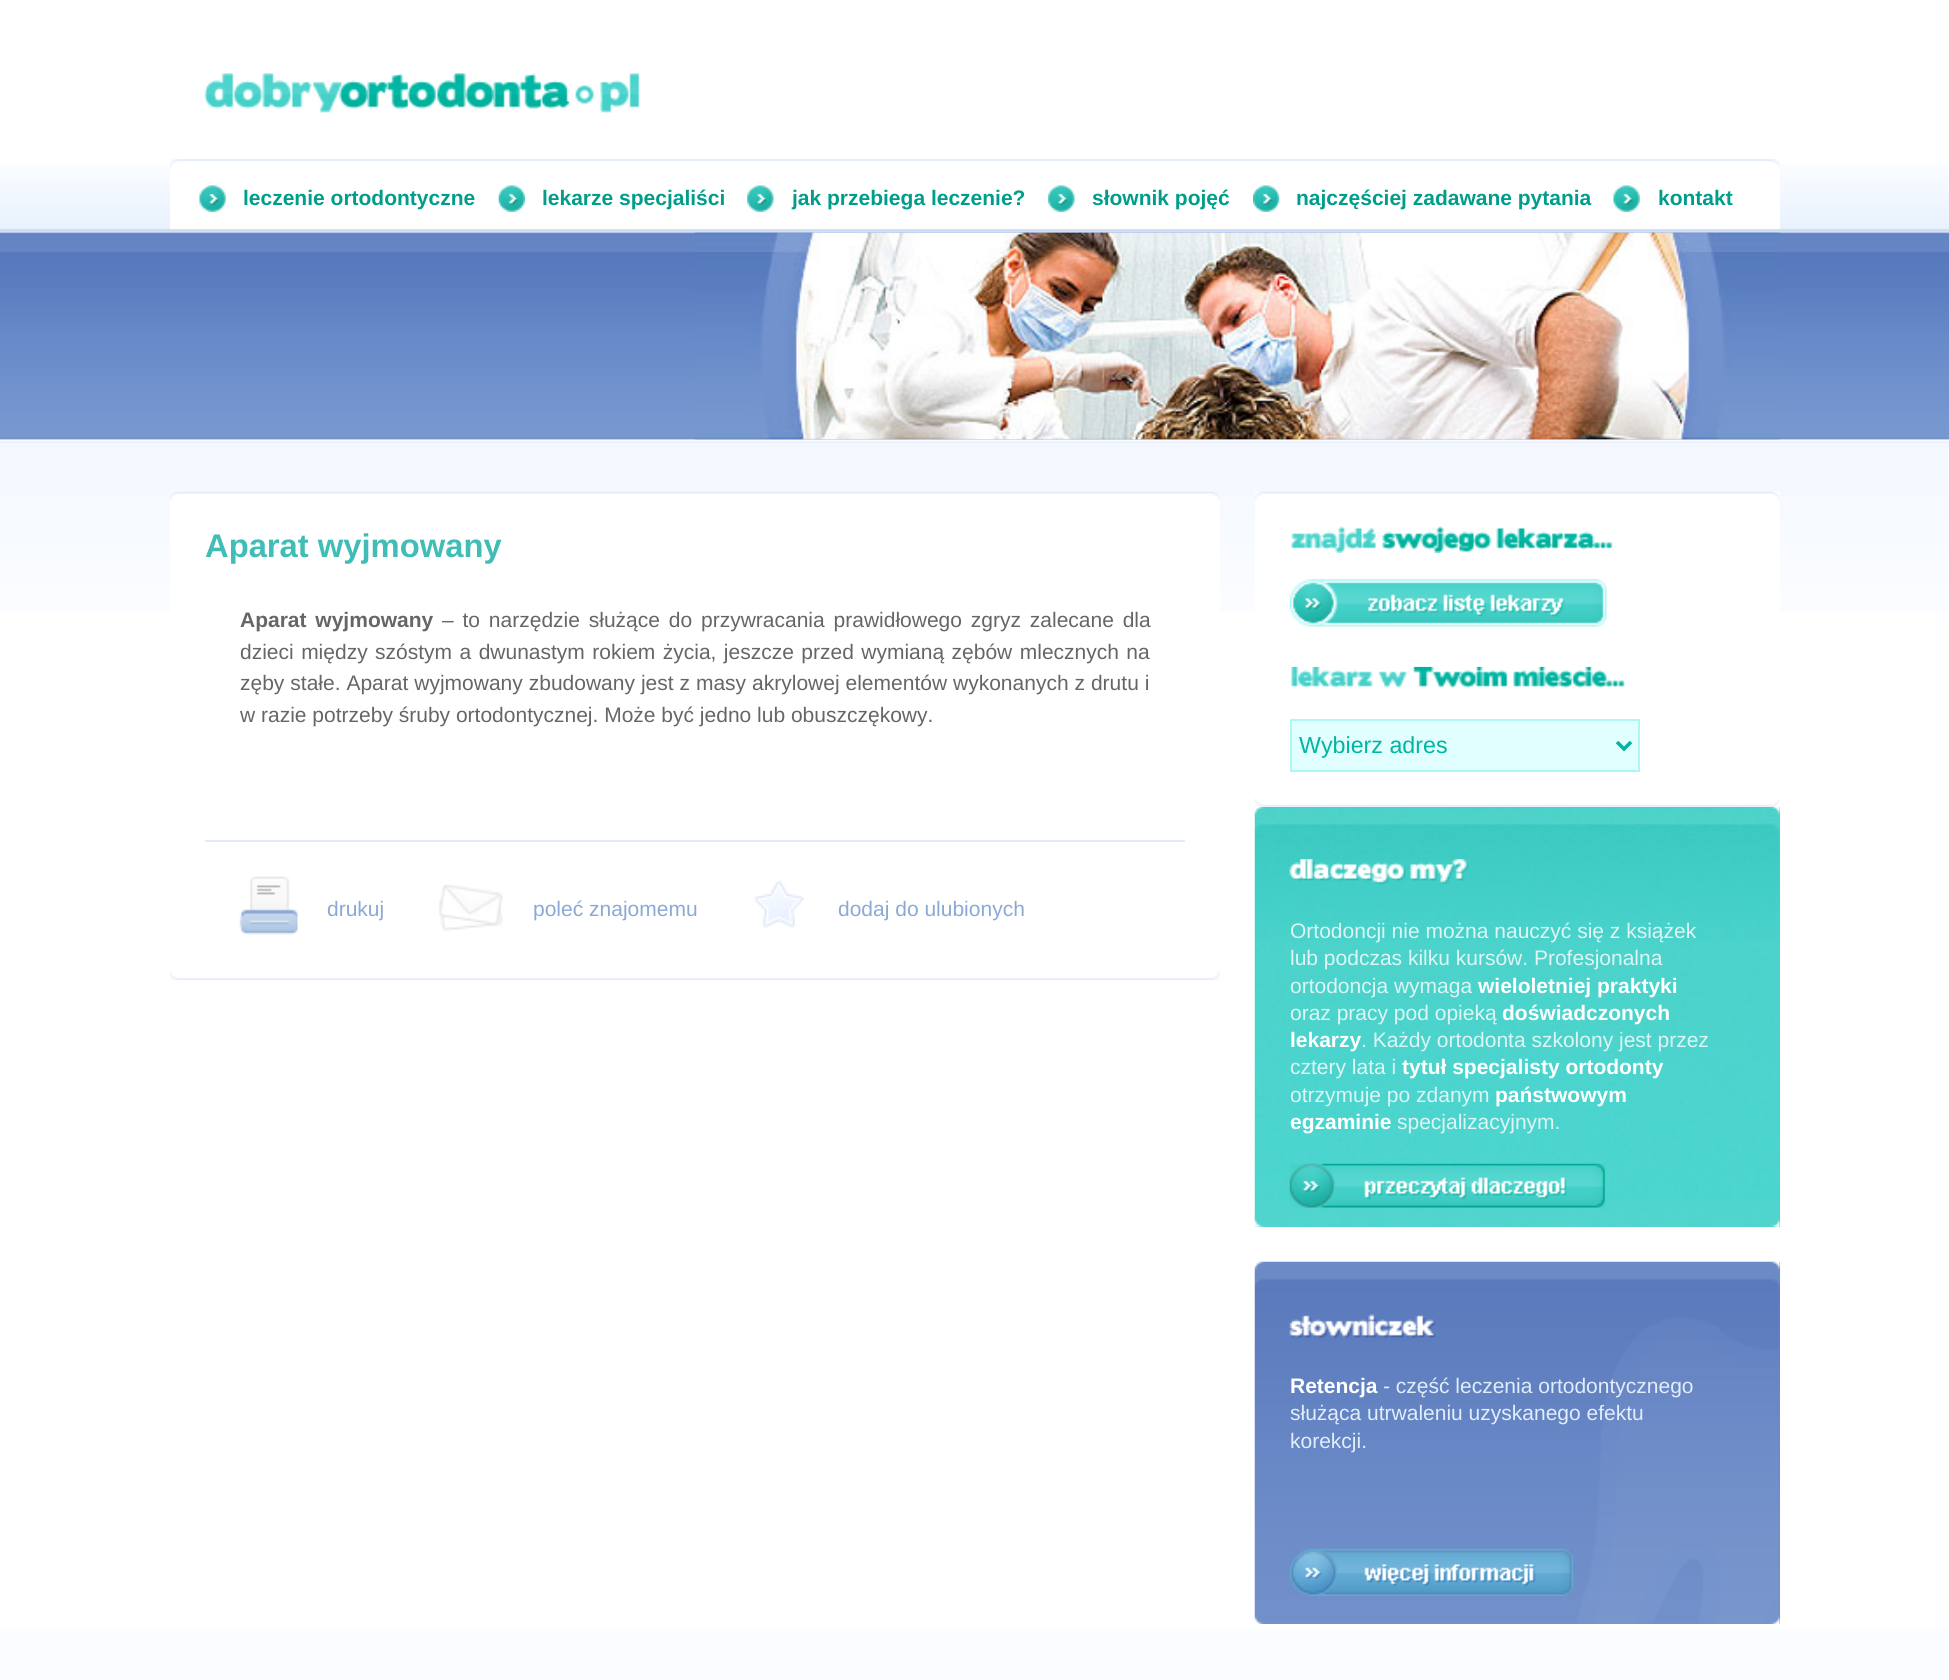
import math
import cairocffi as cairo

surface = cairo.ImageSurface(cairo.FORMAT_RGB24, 1949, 1680)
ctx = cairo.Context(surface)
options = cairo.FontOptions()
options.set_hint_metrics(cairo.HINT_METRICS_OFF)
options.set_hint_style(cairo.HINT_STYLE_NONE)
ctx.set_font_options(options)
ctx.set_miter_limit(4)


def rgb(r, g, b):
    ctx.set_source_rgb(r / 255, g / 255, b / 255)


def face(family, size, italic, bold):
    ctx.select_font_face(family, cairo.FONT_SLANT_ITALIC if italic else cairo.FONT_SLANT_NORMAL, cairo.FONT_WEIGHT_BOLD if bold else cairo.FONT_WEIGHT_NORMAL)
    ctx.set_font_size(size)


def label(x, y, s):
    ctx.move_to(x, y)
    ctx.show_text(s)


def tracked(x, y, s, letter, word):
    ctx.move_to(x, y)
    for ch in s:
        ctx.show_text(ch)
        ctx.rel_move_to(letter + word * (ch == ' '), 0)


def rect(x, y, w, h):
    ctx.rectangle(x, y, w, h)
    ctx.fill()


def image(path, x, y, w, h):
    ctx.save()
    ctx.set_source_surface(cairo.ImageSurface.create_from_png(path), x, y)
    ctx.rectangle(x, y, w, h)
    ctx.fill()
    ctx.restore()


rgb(255, 255, 255)
ctx.paint()
rgb(250, 252, 255)
rect(0, 1629, 1949, 51)
image('image0.png', 0, 164, 1949, 448)
image('image1.png', 694, 232, 1086, 208)
image('image2.png', 204, 73, 436, 40)
rgb(255, 255, 255)
rect(170, 164, 1610, 65)
image('image3.png', 1767, 159, 13, 9)
image('image4.png', 170, 159, 12, 9)
rgb(227, 235, 248)
rect(182, 159, 1586, 2)
image('image5.png', 199, 185, 27, 27)
face('Liberation Sans', 21, 0, 1)
rgb(0, 157, 139)
label(243, 205, 'leczenie ortodontyczne')
image('image6.png', 498, 185, 27, 27)
label(542, 205, 'lekarze specjaliści')
image('image7.png', 747, 185, 27, 27)
label(792, 205, 'jak przebiega leczenie?')
image('image8.png', 1048, 185, 27, 27)
label(1092, 205, 'słownik pojęć')
image('image9.png', 1253, 185, 27, 27)
label(1296, 205, 'najczęściej zadawane pytania')
image('image5.png', 1613, 185, 27, 27)
label(1658, 205, 'kontakt')
rgb(255, 255, 255)
rect(170, 492, 1050, 120)
image('image10.png', 170, 491, 1050, 10)
face('Liberation Sans', 32.75, 0, 1)
rgb(63, 189, 182)
label(205, 557, 'Aparat wyjmowany')
face('Liberation Sans', 21, 0, 1)
rgb(102, 102, 102)
tracked(240, 627, 'Aparat wyjmowany', 0, 3)
face('Liberation Sans', 21, 0, 0)
tracked(442, 627, '– to narzędzie służące do przywracania prawidłowego zgryz zalecane dla', 0, 3)
tracked(240, 659, 'dzieci między szóstym a dwunastym rokiem życia, jeszcze przed wymianą zębów mlecznych na', 0, 1.6)
tracked(240, 690, 'zęby stałe. Aparat wyjmowany zbudowany jest z masy akrylowej elementów wykonanych z drutu i', 0, 0.1)
label(240, 722, 'w razie potrzeby śruby ortodontycznej. Może być jedno lub obuszczękowy.')
image('image11.png', 170, 971, 1050, 9)
rgb(227, 235, 248)
rect(205, 840, 980, 2)
image('image12.png', 239, 876, 59, 59)
rgb(138, 169, 213)
label(327, 916, 'drukuj')
image('image13.png', 439, 884, 64, 47)
label(533, 916, 'poleć znajomemu')
image('image14.png', 754, 880, 50, 48)
label(838, 916, 'dodaj do ulubionych')
rgb(255, 255, 255)
rect(1255, 492, 525, 120)
image('image15.png', 1255, 491, 525, 10)
image('image16.png', 1291, 526, 322, 27)
image('image17.png', 1289, 579, 318, 48)
rgb(75, 211, 203)
rect(1255, 807, 525, 420)
image('image20.png', 1254, 806, 526, 421)
rgb(255, 255, 255)
rect(1258, 806, 519, 1)
image('image18.png', 1254, 798, 526, 9)
image('image19.png', 1291, 666, 334, 23)
rgb(224, 255, 254)
ctx.rectangle(1291, 720, 348, 51)
ctx.fill_preserve()
rgb(172, 248, 244)
ctx.stroke()
ctx.new_path()
ctx.move_to(1617, 742)
ctx.line_to(1624, 749)
ctx.line_to(1631, 742)
rgb(1, 181, 162)
ctx.set_line_width(3.5)
ctx.stroke()
face('Liberation Sans', 23.25, 0, 0)
label(1299, 753, 'Wybierz adres')
image('image21.png', 1289, 859, 180, 25)
face('Liberation Sans', 21, 0, 0)
rgb(222, 245, 244)
label(1290, 938, 'Ortodoncji nie można nauczyć się z książek')
label(1290, 965, 'lub podczas kilku kursów. Profesjonalna')
label(1290, 993, 'ortodoncja wymaga')
face('Liberation Sans', 21, 0, 1)
rgb(255, 255, 255)
label(1478, 993, 'wieloletniej praktyki')
face('Liberation Sans', 21, 0, 0)
rgb(222, 245, 244)
label(1290, 1020, 'oraz pracy pod opieką')
face('Liberation Sans', 21, 0, 1)
rgb(255, 255, 255)
label(1502, 1020, 'doświadczonych')
label(1290, 1047, 'lekarzy')
face('Liberation Sans', 21, 0, 0)
rgb(222, 245, 244)
label(1361, 1047, '. Każdy ortodonta szkolony jest przez')
label(1290, 1074, 'cztery lata i')
face('Liberation Sans', 21, 0, 1)
rgb(255, 255, 255)
label(1402, 1074, 'tytuł specjalisty ortodonty')
face('Liberation Sans', 21, 0, 0)
rgb(222, 245, 244)
label(1290, 1102, 'otrzymuje po zdanym')
face('Liberation Sans', 21, 0, 1)
rgb(255, 255, 255)
label(1495, 1102, 'państwowym')
label(1290, 1129, 'egzaminie')
face('Liberation Sans', 21, 0, 0)
rgb(222, 245, 244)
label(1397, 1129, 'specjalizacyjnym.')
image('image22.png', 1289, 1163, 316, 45)
rgb(105, 136, 198)
rect(1779, 1262, 1, 362)
image('image23.png', 1254, 1261, 526, 363)
image('image24.png', 1289, 1314, 147, 25)
face('Liberation Sans', 21, 0, 1)
rgb(255, 255, 255)
label(1290, 1393, 'Retencja')
face('Liberation Sans', 21, 0, 0)
rgb(226, 237, 250)
label(1383, 1393, '- część leczenia ortodontycznego')
label(1290, 1420, 'służąca utrwaleniu uzyskanego efektu')
label(1290, 1448, 'korekcji.')
image('image25.png', 1289, 1548, 285, 48)
surface.write_to_png('render.png')
